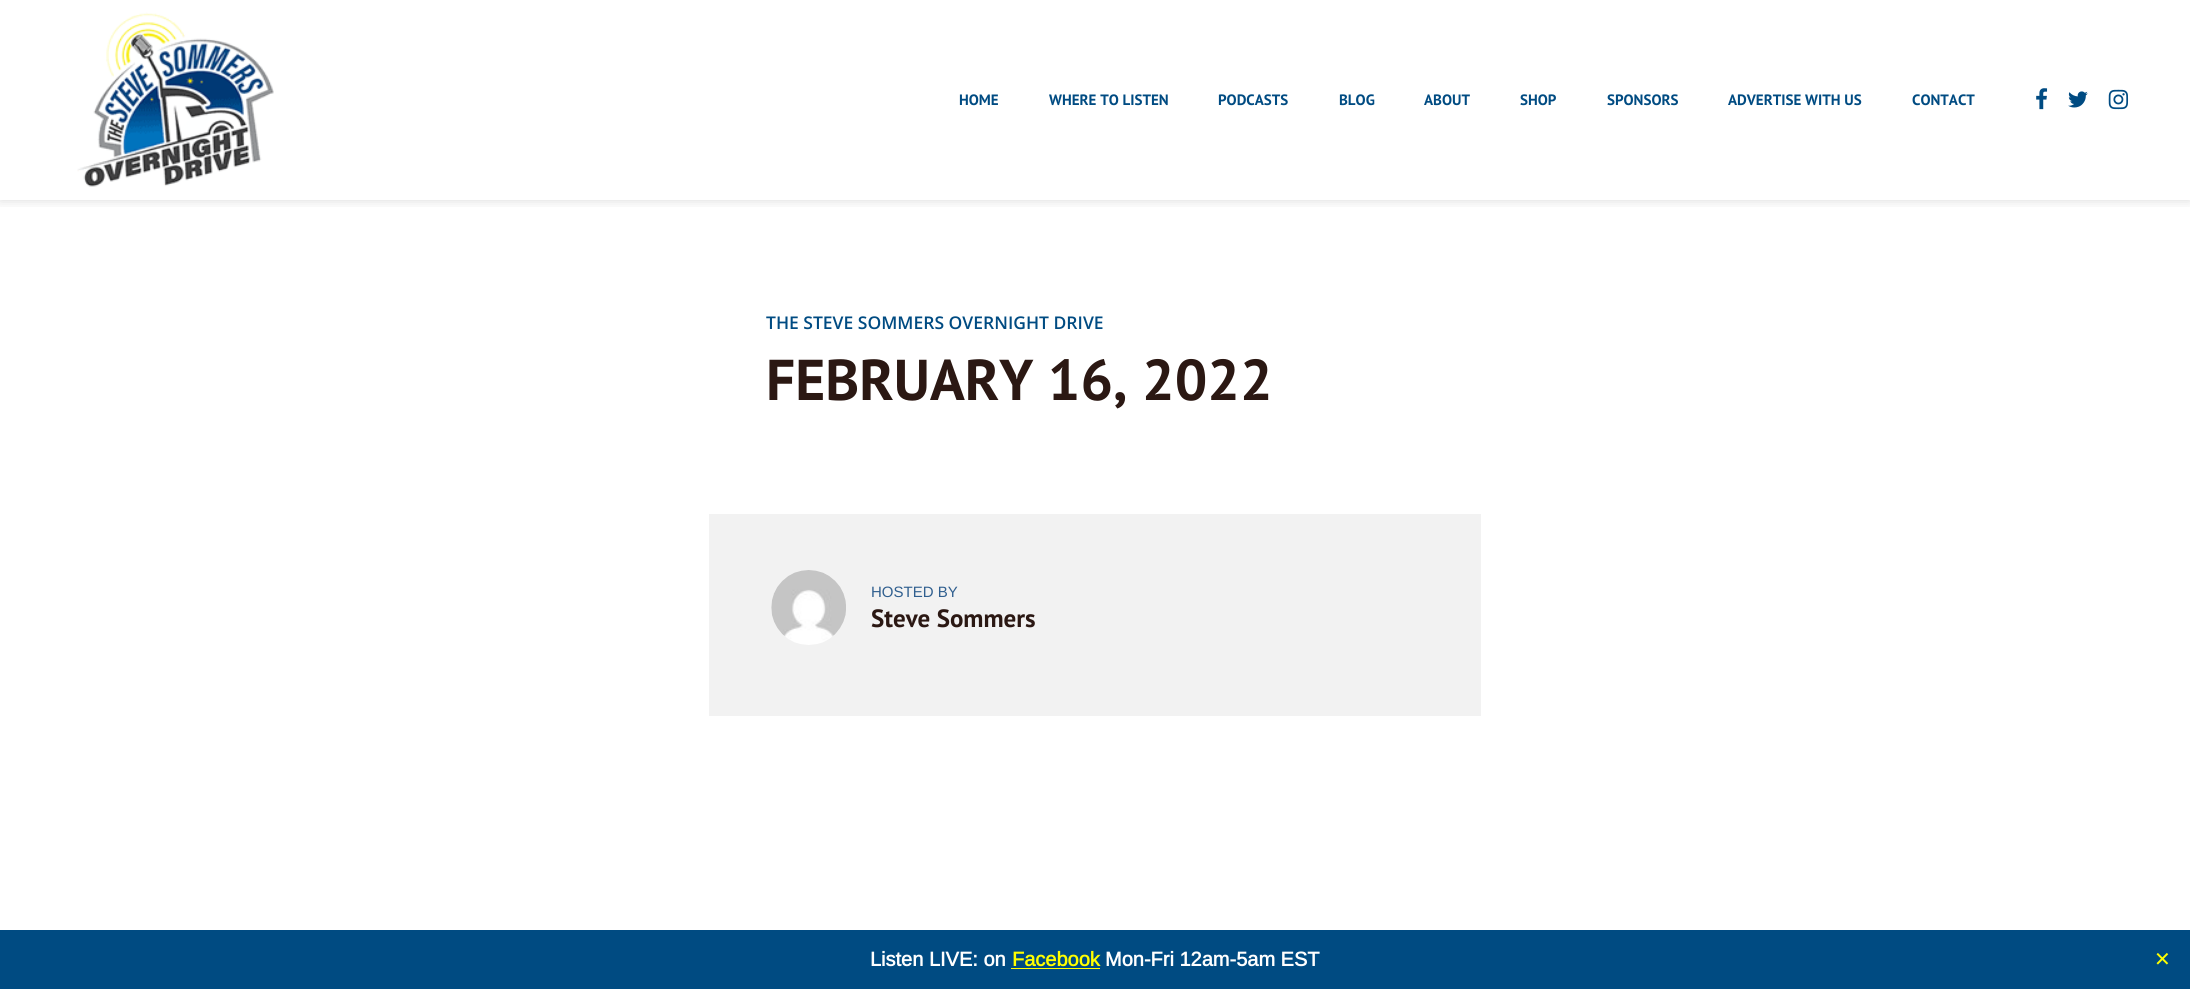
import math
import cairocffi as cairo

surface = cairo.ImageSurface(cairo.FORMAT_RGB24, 2190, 989)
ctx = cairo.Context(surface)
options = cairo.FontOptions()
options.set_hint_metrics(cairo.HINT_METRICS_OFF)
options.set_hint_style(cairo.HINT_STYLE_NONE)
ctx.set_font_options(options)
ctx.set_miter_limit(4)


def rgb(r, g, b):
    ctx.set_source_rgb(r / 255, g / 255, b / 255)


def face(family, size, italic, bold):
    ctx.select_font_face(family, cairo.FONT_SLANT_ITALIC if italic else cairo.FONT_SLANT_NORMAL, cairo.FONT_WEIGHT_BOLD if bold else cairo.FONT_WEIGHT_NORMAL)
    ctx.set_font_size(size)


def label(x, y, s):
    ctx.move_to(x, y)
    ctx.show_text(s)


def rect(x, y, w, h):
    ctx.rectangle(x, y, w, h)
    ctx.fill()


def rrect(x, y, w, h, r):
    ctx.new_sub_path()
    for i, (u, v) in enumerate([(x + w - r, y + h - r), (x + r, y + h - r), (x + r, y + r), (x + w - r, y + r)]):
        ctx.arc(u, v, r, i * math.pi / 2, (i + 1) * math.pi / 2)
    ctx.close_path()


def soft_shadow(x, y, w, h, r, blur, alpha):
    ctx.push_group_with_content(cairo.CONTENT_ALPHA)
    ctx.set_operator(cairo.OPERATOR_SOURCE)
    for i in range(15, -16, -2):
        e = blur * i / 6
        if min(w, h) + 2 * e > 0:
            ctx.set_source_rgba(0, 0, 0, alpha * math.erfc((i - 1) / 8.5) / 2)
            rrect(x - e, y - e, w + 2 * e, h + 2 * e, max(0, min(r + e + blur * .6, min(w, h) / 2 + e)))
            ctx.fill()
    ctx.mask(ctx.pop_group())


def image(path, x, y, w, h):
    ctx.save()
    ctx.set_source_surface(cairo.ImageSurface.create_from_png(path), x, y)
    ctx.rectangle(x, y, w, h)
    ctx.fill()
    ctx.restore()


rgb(255, 255, 255)
ctx.paint()
ctx.save()
ctx.rectangle(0, 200, 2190, 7)
ctx.clip()
rgb(0, 0, 0)
soft_shadow(0, 0, 2190, 200, 0, 6, 0.15)
ctx.restore()
image('image0.png', 77, 12, 197, 175)
face('PT Sans', 15, 0, 1)
rgb(0, 75, 130)
label(959, 105, 'HOME')
label(1049, 105, 'WHERE TO LISTEN')
label(1218, 105, 'PODCASTS')
label(1339, 105, 'BLOG')
label(1424, 105, 'ABOUT')
label(1520, 105, 'SHOP')
label(1607, 105, 'SPONSORS')
label(1728, 105, 'ADVERTISE WITH US')
label(1912, 105, 'CONTACT')
image('image1.png', 2036, 88, 12, 22)
image('image2.png', 2068, 91, 20, 17)
image('image3.png', 2108, 89, 21, 21)
face('Open Sans SemiBold', 17.5, 0, 0)
label(766, 329, 'THE STEVE SOMMERS OVERNIGHT DRIVE')
face('PT Sans', 57.5, 0, 1)
rgb(43, 24, 19)
label(766, 400, 'FEBRUARY 16, 2022')
rgb(242, 242, 242)
rect(709, 514, 772, 202)
image('image4.png', 771, 570, 75, 75)
face('Arimo', 15, 0, 0)
rgb(48, 95, 143)
label(871, 597, 'HOSTED BY')
face('PT Sans', 25, 0, 1)
rgb(43, 24, 19)
label(871, 627, 'Steve Sommers')
rgb(0, 75, 130)
rect(0, 930, 2190, 59)
face('Arimo', 20, 0, 1)
rgb(255, 255, 255)
label(870, 966, 'Listen LIVE: on')
rgb(255, 255, 0)
label(1012, 966, 'Facebook')
rect(1011, 968, 89, 1)
rgb(255, 255, 255)
label(1105, 966, 'Mon-Fri 12am-5am EST')
face('DejaVu Sans', 20, 0, 0)
rgb(255, 255, 0)
label(2154, 966, '✕')
surface.write_to_png('render.png')
